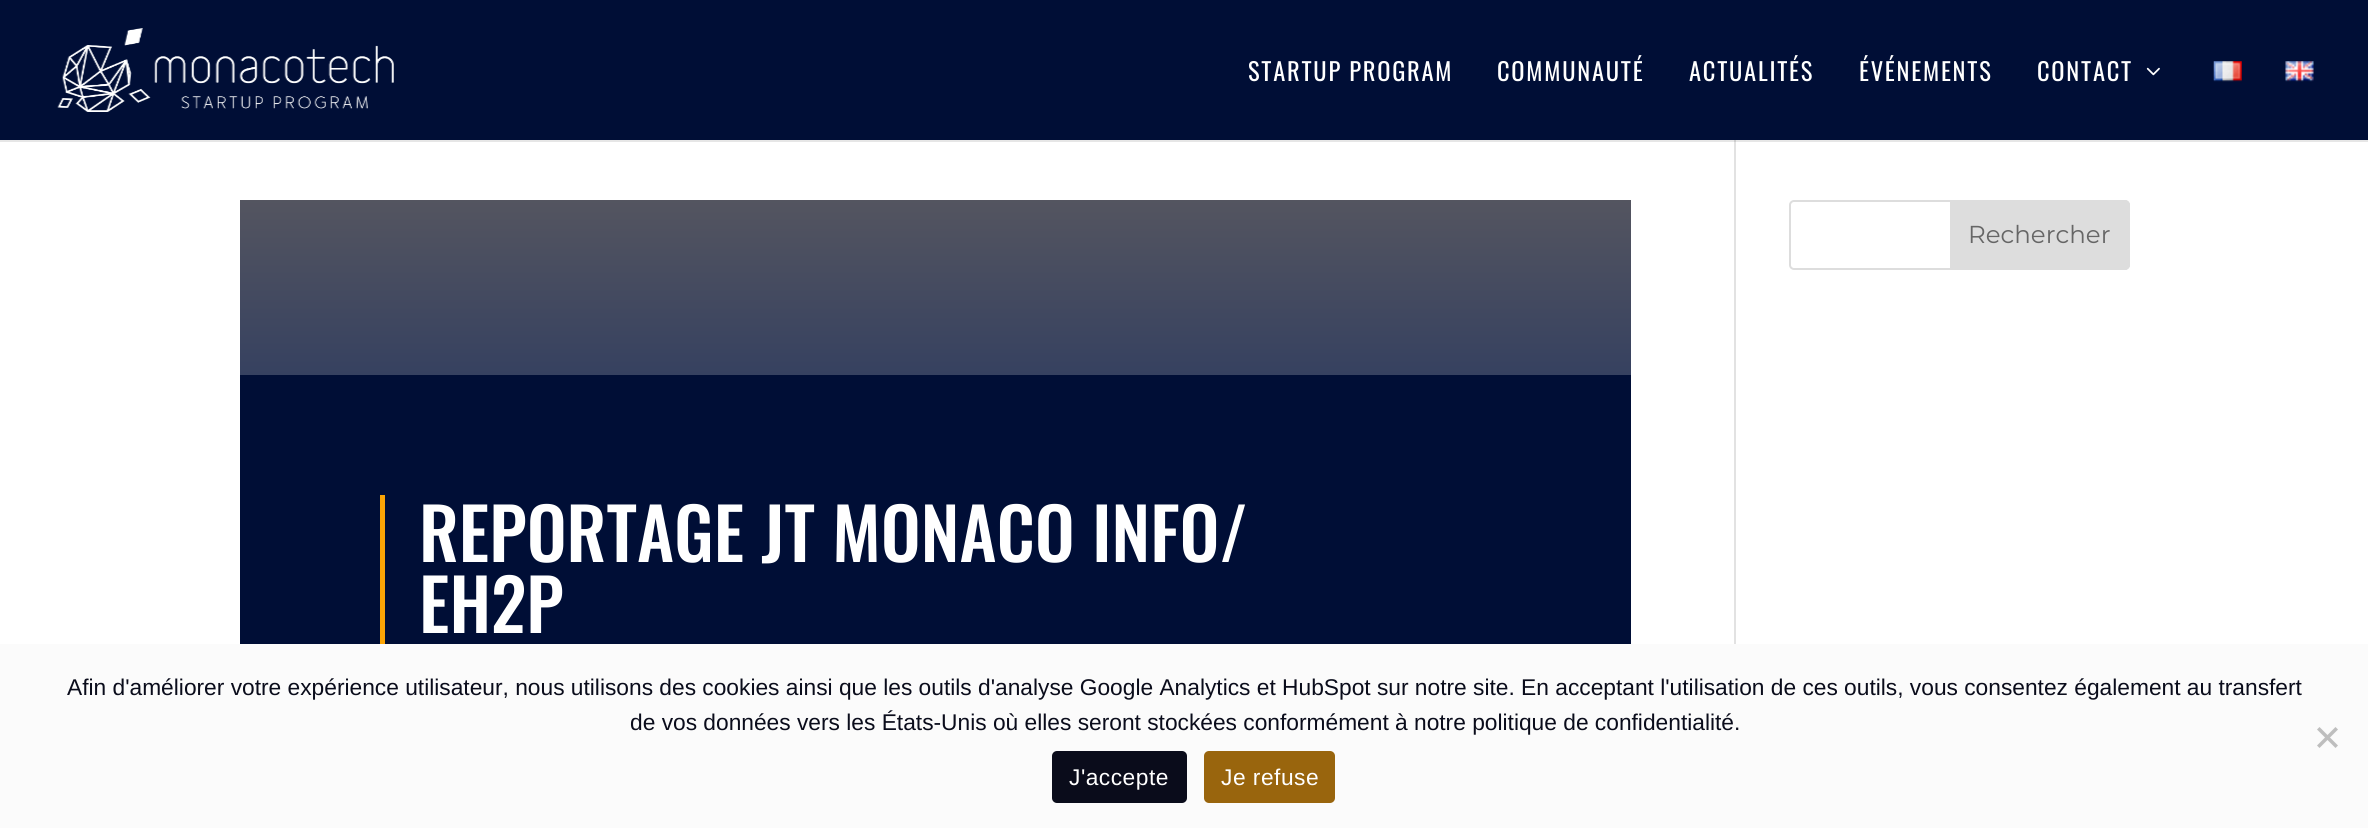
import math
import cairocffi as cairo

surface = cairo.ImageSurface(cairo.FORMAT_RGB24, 2368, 828)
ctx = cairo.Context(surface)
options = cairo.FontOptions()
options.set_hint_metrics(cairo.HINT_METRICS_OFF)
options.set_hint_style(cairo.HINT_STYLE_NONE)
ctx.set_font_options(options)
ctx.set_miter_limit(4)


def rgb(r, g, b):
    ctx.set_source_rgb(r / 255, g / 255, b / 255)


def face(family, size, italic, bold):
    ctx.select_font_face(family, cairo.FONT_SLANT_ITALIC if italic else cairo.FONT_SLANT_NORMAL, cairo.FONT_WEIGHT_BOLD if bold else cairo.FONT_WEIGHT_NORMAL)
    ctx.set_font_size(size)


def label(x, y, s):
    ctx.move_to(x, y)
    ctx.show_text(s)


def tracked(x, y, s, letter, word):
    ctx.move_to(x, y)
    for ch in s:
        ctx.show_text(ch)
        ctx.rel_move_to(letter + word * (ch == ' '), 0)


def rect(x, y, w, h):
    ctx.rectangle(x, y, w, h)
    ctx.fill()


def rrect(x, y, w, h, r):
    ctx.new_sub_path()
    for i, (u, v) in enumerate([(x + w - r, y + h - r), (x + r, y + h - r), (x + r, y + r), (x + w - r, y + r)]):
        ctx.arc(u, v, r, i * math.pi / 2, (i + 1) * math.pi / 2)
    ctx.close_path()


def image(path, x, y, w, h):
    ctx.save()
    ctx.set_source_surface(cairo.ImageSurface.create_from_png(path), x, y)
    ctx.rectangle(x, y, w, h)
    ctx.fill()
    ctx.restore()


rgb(255, 255, 255)
ctx.paint()
rgb(226, 226, 226)
rect(1734, 140, 2, 504)
ctx.set_source_rgba(0, 0, 0, 0.1)
ctx.new_path()
ctx.move_to(0, 140)
ctx.line_to(0, 142)
ctx.line_to(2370, 142)
ctx.line_to(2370, 2)
ctx.line_to(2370, 140)
ctx.close_path()
ctx.fill()
rgb(0, 14, 54)
rect(0, 0, 2368, 140)
image('image0.png', 57, 28, 337, 84)
face('Oswald', 24.5, 0, 0)
rgb(255, 255, 255)
tracked(1248, 81, 'STARTUP PROGRAM', 1.75, 0)
tracked(1497, 81, 'COMMUNAUTÉ', 1.75, 0)
tracked(1689, 81, 'ACTUALITÉS', 1.75, 0)
tracked(1859, 81, 'ÉVÉNEMENTS', 1.75, 0)
tracked(2037, 81, 'CONTACT', 1.75, 0)
image('image1.png', 2146, 67, 14, 9)
image('image2.png', 2213, 61, 29, 21)
image('image3.png', 2285, 61, 29, 21)
rrect(1790, 201, 339, 68, 4)
rgb(221, 221, 221)
ctx.stroke()
ctx.new_path()
ctx.move_to(1951, 201)
ctx.line_to(2125, 201)
ctx.curve_to(2127, 201, 2129, 203, 2129, 205)
ctx.line_to(2129, 265)
ctx.curve_to(2129, 267, 2127, 269, 2125, 269)
ctx.line_to(1951, 269)
ctx.close_path()
ctx.fill_preserve()
ctx.stroke()
face('Montserrat', 24.5, 0, 0)
rgb(102, 102, 102)
label(1968, 243, 'Rechercher')
gradient = cairo.LinearGradient(935, 199, 935, 375)
gradient.add_color_stop_rgba(0, 0.329, 0.333, 0.376, 1)
gradient.add_color_stop_rgba(1, 0.212, 0.255, 0.376, 1)
ctx.set_source(gradient)
rect(240, 200, 1391, 175)
rgb(0, 14, 54)
rect(240, 375, 1391, 269)
rgb(251, 164, 5)
rect(380, 495, 5, 149)
face('Oswald Medium', 71, 0, 0)
rgb(255, 255, 255)
label(419, 562, 'REPORTAGE JT MONACO INFO/')
label(419, 633, 'EH2P')
rgb(251, 251, 251)
rect(0, 644, 2368, 184)
face('Liberation Sans', 22.75, 0, 0)
rgb(10, 12, 27)
label(67, 695, 'Afin d\'améliorer votre expérience utilisateur, nous utilisons des cookies ainsi que les outils d\'analyse Google Analytics et HubSpot sur notre site. En acceptant l\'utilisation de ces outils, vous consentez également au transfert')
label(630, 730, 'de vos données vers les États-Unis où elles seront stockées conformément à notre politique de confidentialité.')
rgb(190, 190, 190)
ctx.new_path()
ctx.move_to(2335.5, 727)
ctx.line_to(2338, 729.5)
ctx.line_to(2319.5, 748)
ctx.line_to(2317, 745.5)
ctx.close_path()
ctx.fill()
ctx.new_path()
ctx.move_to(2317, 729.5)
ctx.line_to(2319.5, 727)
ctx.line_to(2338, 745.5)
ctx.line_to(2335.5, 748)
ctx.close_path()
ctx.fill()
rgb(10, 12, 27)
rrect(1052, 751, 135, 52, 5)
ctx.fill()
rgb(255, 255, 255)
tracked(1069, 785, 'J\'accepte', 0.5, 0)
rgb(153, 101, 13)
rrect(1204, 751, 131, 52, 5)
ctx.fill()
rgb(255, 255, 255)
tracked(1221, 785, 'Je refuse', 0.5, 0)
surface.write_to_png('render.png')
